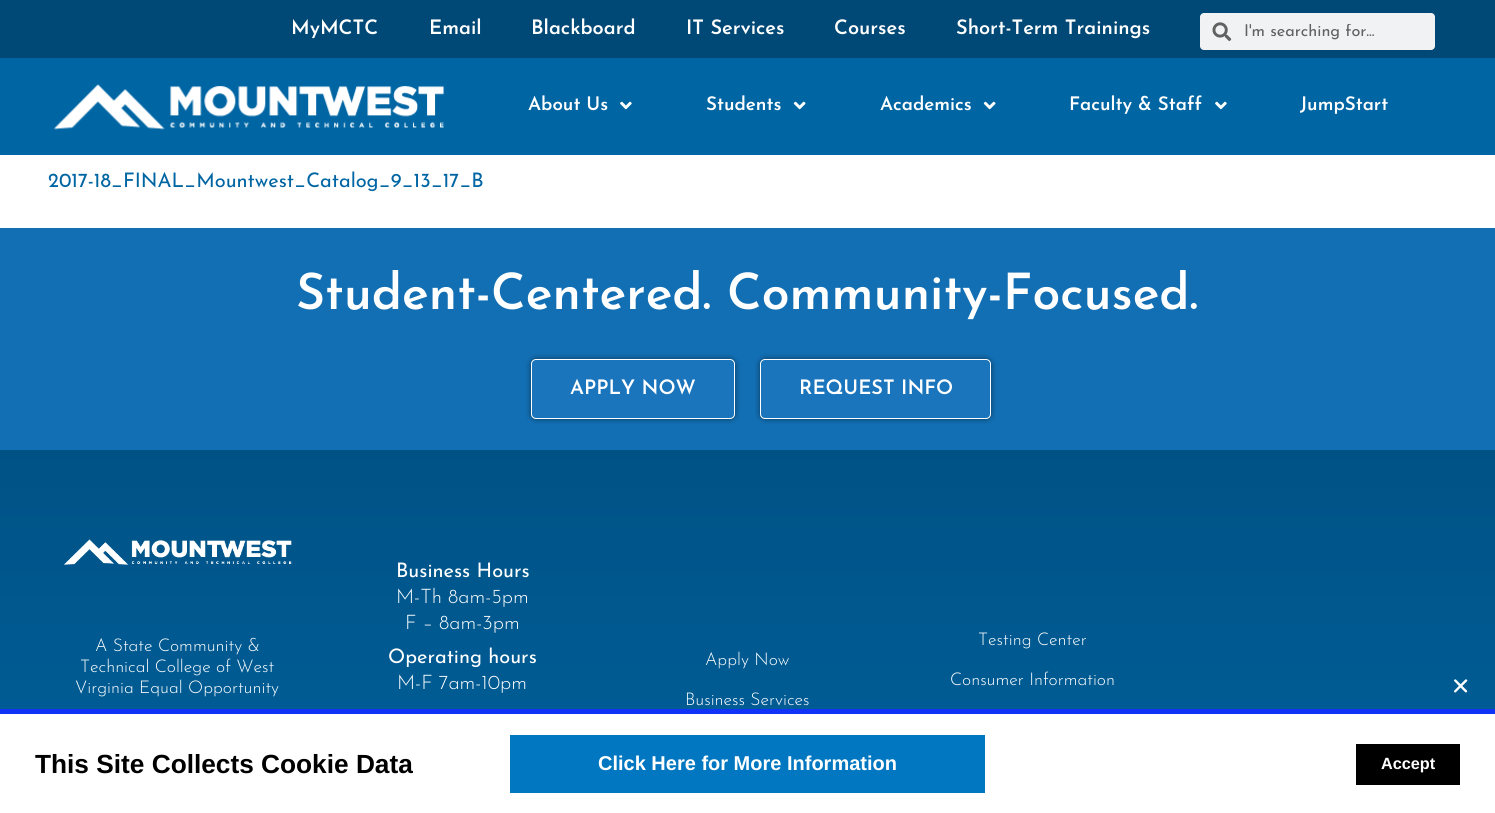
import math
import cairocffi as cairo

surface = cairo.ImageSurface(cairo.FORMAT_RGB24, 1495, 813)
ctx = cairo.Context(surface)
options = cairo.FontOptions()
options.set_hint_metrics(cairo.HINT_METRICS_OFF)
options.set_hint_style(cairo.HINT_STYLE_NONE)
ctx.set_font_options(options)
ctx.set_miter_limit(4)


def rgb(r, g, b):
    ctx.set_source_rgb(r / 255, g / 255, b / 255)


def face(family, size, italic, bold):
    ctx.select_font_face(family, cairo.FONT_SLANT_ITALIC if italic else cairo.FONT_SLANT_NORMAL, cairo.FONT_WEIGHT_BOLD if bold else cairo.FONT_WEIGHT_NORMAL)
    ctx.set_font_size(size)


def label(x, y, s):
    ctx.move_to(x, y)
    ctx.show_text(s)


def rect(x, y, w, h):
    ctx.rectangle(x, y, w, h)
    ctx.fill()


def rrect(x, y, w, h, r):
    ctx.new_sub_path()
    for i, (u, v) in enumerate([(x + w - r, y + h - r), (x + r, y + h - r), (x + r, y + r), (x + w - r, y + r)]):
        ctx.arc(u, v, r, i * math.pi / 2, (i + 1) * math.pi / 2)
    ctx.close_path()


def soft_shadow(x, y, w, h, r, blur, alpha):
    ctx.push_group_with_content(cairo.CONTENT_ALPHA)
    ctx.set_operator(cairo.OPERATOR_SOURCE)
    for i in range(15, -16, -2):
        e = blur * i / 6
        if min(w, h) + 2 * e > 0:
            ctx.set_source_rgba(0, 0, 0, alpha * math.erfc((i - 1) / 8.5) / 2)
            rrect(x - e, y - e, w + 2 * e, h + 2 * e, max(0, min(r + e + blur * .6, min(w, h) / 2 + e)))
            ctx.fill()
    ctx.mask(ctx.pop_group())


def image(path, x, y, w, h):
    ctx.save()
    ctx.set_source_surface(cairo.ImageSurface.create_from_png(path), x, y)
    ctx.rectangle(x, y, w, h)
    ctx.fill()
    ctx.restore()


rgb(255, 255, 255)
ctx.paint()
rgb(0, 72, 117)
rect(0, 0, 1495, 58)
face('Josefin Sans SemiBold', 20, 0, 0)
rgb(255, 255, 255)
label(291, 34, 'MyMCTC')
label(429, 34, 'Email')
label(531, 34, 'Blackboard')
label(686, 34, 'IT Services')
label(834, 34, 'Courses')
label(956, 34, 'Short-Term Trainings')
rgb(241, 242, 243)
rrect(1200, 13, 235, 37, 4)
ctx.fill()
image('image0.png', 1212, 22, 20, 19)
ctx.save()
ctx.rectangle(1244, 24, 162, 16)
ctx.clip()
face('Josefin Sans', 16.25, 0, 0)
rgb(96, 97, 97)
label(1244, 36, 'I\'m searching for...')
ctx.restore()
rgb(0, 101, 163)
rect(0, 58, 1495, 97)
image('image1.png', 53, 84, 392, 46)
face('Josefin Sans SemiBold', 18.75, 0, 0)
rgb(255, 255, 255)
label(528, 110, 'About Us')
image('image2.png', 620, 101, 12, 9)
label(706, 110, 'Students')
image('image3.png', 793, 101, 13, 9)
label(880, 110, 'Academics')
image('image3.png', 983, 101, 13, 9)
label(1069, 110, 'Faculty & Staff')
image('image2.png', 1215, 101, 12, 9)
label(1300, 110, 'JumpStart')
face('Josefin Sans', 20, 0, 0)
rgb(0, 101, 163)
label(48, 187, '2017-18_FINAL_Mountwest_Catalog_9_13_17_B')
rgb(18, 111, 180)
rect(0, 228, 1495, 222)
face('Josefin Sans SemiBold', 50, 0, 0)
rgb(255, 255, 255)
label(296, 309, 'Student-Centered. Community-Focused.')
rgb(0, 0, 0)
soft_shadow(531, 359, 204, 60, 5, 3, 0.5)
rgb(27, 117, 188)
rrect(531.5, 359.5, 203, 59, 4.5)
ctx.fill_preserve()
rgb(255, 255, 255)
ctx.set_line_width(1)
ctx.stroke()
face('Josefin Sans SemiBold', 20, 0, 0)
label(570, 394, 'APPLY NOW')
rgb(0, 0, 0)
soft_shadow(760, 359, 231, 60, 5, 3, 0.5)
rgb(27, 117, 188)
rrect(760.5, 359.5, 230, 59, 4.5)
ctx.fill_preserve()
rgb(255, 255, 255)
ctx.stroke()
label(799, 394, 'REQUEST INFO')
gradient = cairo.LinearGradient(748, 450, 748, 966)
gradient.add_color_stop_rgba(0, 0, 0.322, 0.522, 1)
gradient.add_color_stop_rgba(1, 0, 0.396, 0.639, 1)
ctx.set_source(gradient)
rect(0, 450, 1495, 259)
image('image4.png', 63, 539, 229, 26)
face('Josefin Sans Light', 17.5, 0, 0)
rgb(255, 255, 255)
label(95, 651, 'A State Community &')
label(80, 672, 'Technical College of West')
label(75, 693, 'Virginia Equal Opportunity')
face('Josefin Sans', 20, 0, 0)
label(396, 577, 'Business Hours')
face('Josefin Sans Light', 20, 0, 0)
label(396, 603, 'M-Th 8am-5pm')
label(405, 629, 'F – 8am-3pm')
face('Josefin Sans', 20, 0, 0)
label(388, 663, 'Operating hours')
face('Josefin Sans Light', 20, 0, 0)
label(397, 689, 'M-F 7am-10pm')
face('Josefin Sans Light', 17.5, 0, 0)
label(705, 665, 'Apply Now')
label(685, 705, 'Business Services')
label(978, 645, 'Testing Center')
label(950, 685, 'Consumer Information')
image('image5.png', 1454, 679, 14, 14)
rgb(17, 51, 247)
rect(0, 709, 1495, 5)
face('Liberation Sans', 26.25, 0, 1)
rgb(0, 0, 0)
label(35, 773, 'This Site Collects Cookie Data')
rgb(0, 119, 192)
rect(510, 735, 475, 58)
face('Liberation Sans', 20, 0, 1)
rgb(255, 255, 255)
label(598, 770, 'Click Here for More Information')
rgb(0, 0, 0)
rect(1356, 744, 104, 41)
face('Liberation Sans', 16.25, 0, 1)
rgb(255, 255, 255)
label(1381, 769, 'Accept')
surface.write_to_png('render.png')
